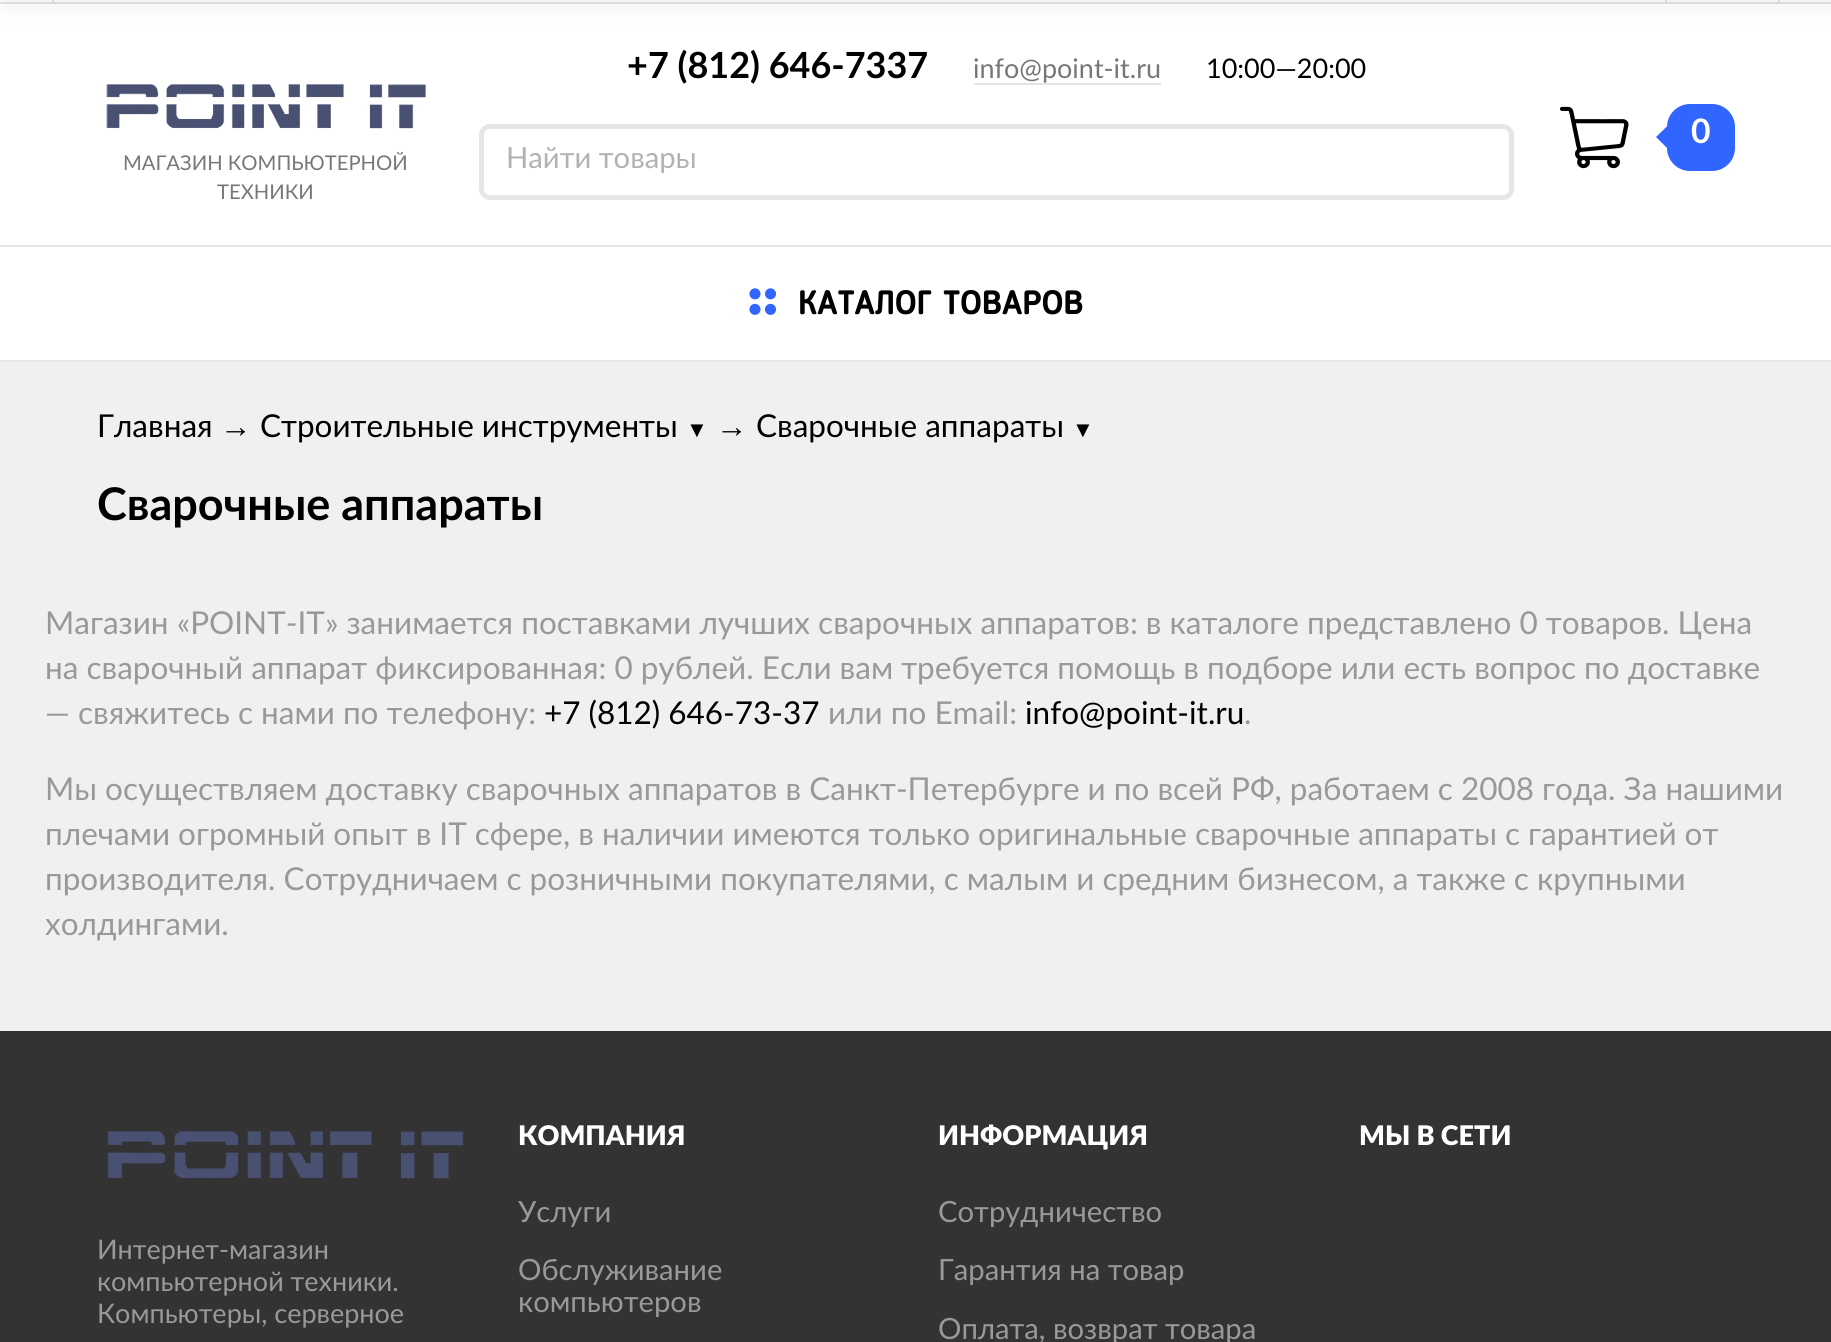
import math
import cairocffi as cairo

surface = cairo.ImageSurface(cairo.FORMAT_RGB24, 1831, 1342)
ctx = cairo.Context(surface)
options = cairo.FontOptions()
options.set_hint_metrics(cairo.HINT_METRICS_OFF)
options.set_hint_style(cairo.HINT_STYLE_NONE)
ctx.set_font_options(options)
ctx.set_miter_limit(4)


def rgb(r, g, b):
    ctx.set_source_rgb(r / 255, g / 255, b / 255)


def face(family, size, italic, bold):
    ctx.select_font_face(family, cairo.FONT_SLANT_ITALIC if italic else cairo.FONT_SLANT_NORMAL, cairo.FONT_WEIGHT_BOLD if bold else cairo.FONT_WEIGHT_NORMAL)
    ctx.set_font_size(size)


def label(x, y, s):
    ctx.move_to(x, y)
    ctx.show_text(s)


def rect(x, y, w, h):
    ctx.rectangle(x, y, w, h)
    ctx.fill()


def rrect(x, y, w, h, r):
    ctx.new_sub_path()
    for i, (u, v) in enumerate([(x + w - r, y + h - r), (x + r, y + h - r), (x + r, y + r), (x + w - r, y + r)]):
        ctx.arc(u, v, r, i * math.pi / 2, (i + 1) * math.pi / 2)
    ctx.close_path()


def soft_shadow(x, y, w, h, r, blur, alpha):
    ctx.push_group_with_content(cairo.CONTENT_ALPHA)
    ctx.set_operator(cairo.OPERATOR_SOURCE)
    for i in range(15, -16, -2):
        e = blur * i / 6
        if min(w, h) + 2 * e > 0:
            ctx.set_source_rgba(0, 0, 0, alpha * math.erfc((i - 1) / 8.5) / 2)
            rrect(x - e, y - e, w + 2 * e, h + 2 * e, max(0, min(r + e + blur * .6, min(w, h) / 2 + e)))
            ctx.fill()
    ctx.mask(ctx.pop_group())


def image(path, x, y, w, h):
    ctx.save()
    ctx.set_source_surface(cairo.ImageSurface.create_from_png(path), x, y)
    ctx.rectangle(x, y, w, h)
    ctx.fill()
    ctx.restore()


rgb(240, 240, 240)
ctx.paint()
rgb(255, 255, 255)
rect(0, 0, 1831, 245)
rgb(229, 229, 229)
rect(0, 2, 1831, 2)
rect(1778, 0, 2, 2)
rect(52, 0, 2, 2)
rect(1665, 0, 2, 2)
face('Lato', 36, 0, 1)
rgb(0, 0, 0)
label(627, 78, '+7 (812) 646-7337')
face('Lato', 27, 0, 0)
rgb(119, 119, 119)
label(973, 78, 'info@point-it.ru')
rgb(229, 229, 229)
rect(974, 83, 187, 2)
rgb(0, 0, 0)
label(1206, 78, '10:00—20:00')
rrect(481.5, 126.5, 1030, 71, 8.5)
rgb(230, 230, 230)
ctx.set_line_width(5)
ctx.stroke()
face('Lato', 29.25, 0, 0)
rgb(178, 178, 178)
label(506, 168, 'Найти товары')
image('image0.png', 1560, 106, 69, 63)
rgb(48, 101, 255)
rrect(1667, 104, 68, 67, 23)
ctx.fill()
ctx.new_path()
ctx.move_to(1672, 121.5)
ctx.line_to(1672, 153)
ctx.line_to(1656, 137)
ctx.close_path()
ctx.fill()
face('Lato', 33.75, 0, 1)
rgb(255, 255, 255)
label(1691, 143, '0')
image('image1.png', 106, 84, 320, 45)
face('Lato', 20.25, 0, 0)
rgb(119, 119, 119)
label(123, 170, 'МАГАЗИН КОМПЬЮТЕРНОЙ')
label(217, 199, 'ТЕХНИКИ')
rgb(255, 255, 255)
rect(0, 247, 1831, 113)
rgb(229, 229, 229)
rect(0, 245, 1831, 2)
rect(0, 360, 1831, 2)
image('image2.png', 749, 288, 27, 27)
face('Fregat', 33.75, 0, 1)
rgb(0, 0, 0)
label(798, 314, 'КАТАЛОГ ТОВАРОВ')
rgb(0, 0, 0)
soft_shadow(7, -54, 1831, 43, 0, 18, 0.18)
face('Lato', 31.5, 0, 0)
rgb(0, 0, 0)
label(97, 437, 'Главная')
face('Liberation Sans', 31.5, 0, 0)
label(220, 437, '→')
face('Lato', 31.5, 0, 0)
label(260, 437, 'Строительные инструменты')
face('Liberation Sans', 22, 0, 0)
label(686, 437, '▼')
face('Liberation Sans', 31.5, 0, 0)
label(716, 437, '→')
face('Lato', 31.5, 0, 0)
label(756, 437, 'Сварочные аппараты')
face('Liberation Sans', 22, 0, 0)
label(1072, 437, '▼')
face('Lato', 45, 0, 1)
label(97, 520, 'Сварочные аппараты')
face('Lato', 31.5, 0, 0)
rgb(153, 153, 153)
label(45, 634, 'Магазин «POINT-IT» занимается поставками лучших сварочных аппаратов: в каталоге представлено 0 товаров. Цена')
label(45, 679, 'на сварочный аппарат фиксированная: 0 рублей. Если вам требуется помощь в подборе или есть вопрос по доставке')
label(45, 724, '— свяжитесь с нами по телефону:')
rgb(0, 0, 0)
label(544, 724, '+7 (812) 646-73-37')
rgb(153, 153, 153)
label(828, 724, 'или по Email:')
rgb(0, 0, 0)
label(1025, 724, 'info@point-it.ru')
rgb(153, 153, 153)
label(1244, 724, '.')
label(45, 800, 'Мы осуществляем доставку сварочных аппаратов в Санкт-Петербурге и по всей РФ, работаем c 2008 года. За нашими')
label(45, 845, 'плечами огромный опыт в IT сфере, в наличии имеются только оригинальные сварочные аппараты с гарантией от')
label(45, 890, 'производителя. Сотрудничаем с розничными покупателями, с малым и средним бизнесом, а также с крупными')
label(45, 935, 'холдингами.')
rgb(51, 51, 51)
rect(0, 1031, 1831, 311)
face('Lato Black', 27, 0, 0)
rgb(255, 255, 255)
label(518, 1145, 'КОМПАНИЯ')
face('Lato', 29.25, 0, 0)
rgb(153, 153, 153)
label(518, 1222, 'Услуги')
label(518, 1280, 'Обслуживание')
label(518, 1312, 'компьютеров')
face('Lato Black', 27, 0, 0)
rgb(255, 255, 255)
label(938, 1145, 'ИНФОРМАЦИЯ')
face('Lato', 29.25, 0, 0)
rgb(153, 153, 153)
label(938, 1222, 'Сотрудничество')
label(938, 1280, 'Гарантия на товар')
label(938, 1339, 'Оплата, возврат товара')
face('Lato Black', 27, 0, 0)
rgb(255, 255, 255)
label(1359, 1145, 'МЫ В СЕТИ')
image('image3.png', 107, 1131, 357, 48)
face('Lato', 27, 0, 0)
rgb(153, 153, 153)
label(97, 1259, 'Интернет-магазин')
label(97, 1291, 'компьютерной техники.')
label(97, 1323, 'Компьютеры, серверное')
surface.write_to_png('render.png')
